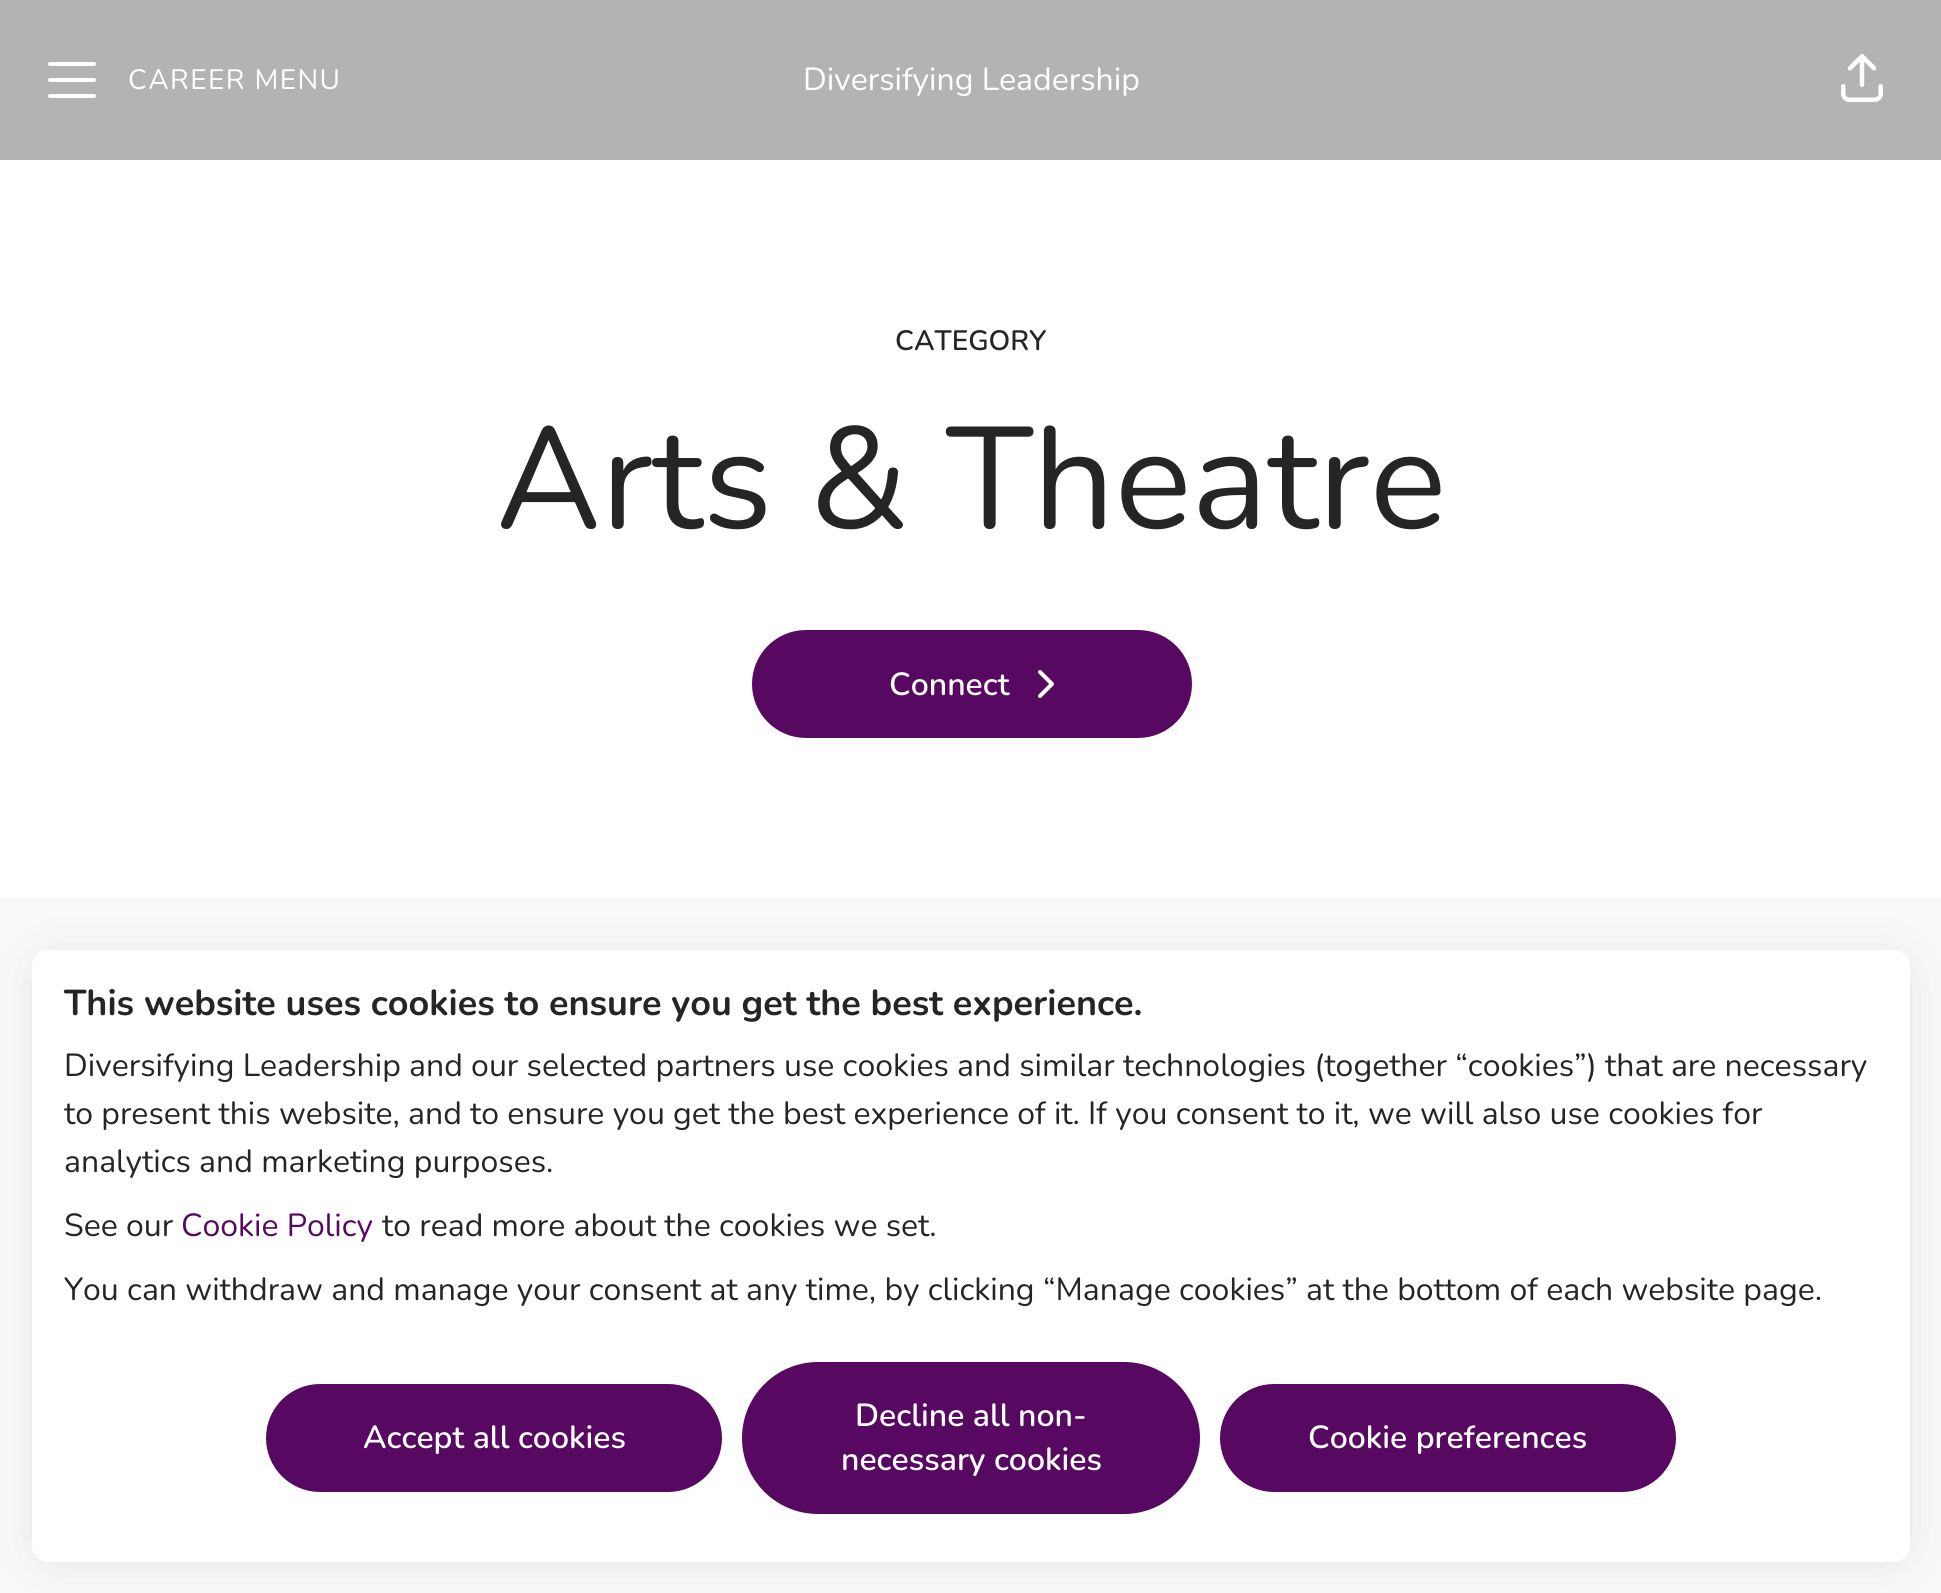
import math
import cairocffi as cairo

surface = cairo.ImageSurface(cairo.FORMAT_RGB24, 1941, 1593)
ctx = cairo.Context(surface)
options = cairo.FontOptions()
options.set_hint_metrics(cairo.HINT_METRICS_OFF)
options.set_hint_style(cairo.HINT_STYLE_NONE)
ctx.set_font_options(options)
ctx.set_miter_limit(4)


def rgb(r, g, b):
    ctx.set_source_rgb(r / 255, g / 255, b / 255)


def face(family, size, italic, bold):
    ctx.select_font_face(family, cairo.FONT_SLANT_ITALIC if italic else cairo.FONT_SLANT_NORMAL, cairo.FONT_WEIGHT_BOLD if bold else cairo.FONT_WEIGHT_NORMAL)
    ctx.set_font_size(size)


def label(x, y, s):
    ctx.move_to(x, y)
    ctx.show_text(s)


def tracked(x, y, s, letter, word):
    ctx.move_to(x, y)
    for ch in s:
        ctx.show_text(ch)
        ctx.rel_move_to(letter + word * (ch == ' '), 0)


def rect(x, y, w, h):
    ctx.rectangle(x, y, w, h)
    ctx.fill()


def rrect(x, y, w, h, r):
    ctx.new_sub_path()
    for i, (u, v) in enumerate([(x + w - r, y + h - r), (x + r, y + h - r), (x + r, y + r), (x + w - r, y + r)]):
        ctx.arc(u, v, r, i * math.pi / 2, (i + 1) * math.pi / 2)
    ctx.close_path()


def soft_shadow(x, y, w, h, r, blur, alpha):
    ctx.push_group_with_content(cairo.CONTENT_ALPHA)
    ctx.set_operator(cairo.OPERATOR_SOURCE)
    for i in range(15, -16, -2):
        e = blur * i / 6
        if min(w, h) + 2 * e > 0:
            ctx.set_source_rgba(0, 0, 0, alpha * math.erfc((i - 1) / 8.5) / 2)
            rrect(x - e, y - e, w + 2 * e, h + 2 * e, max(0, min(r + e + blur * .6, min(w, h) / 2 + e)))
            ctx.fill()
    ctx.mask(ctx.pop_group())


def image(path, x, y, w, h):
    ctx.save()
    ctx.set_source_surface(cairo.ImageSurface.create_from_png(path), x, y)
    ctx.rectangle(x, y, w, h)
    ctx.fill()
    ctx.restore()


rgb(255, 255, 255)
ctx.paint()
rgb(179, 179, 179)
rect(0, 0, 1941, 160)
rgb(255, 255, 255)
rrect(48, 62, 48, 4, 2)
ctx.fill()
rrect(48, 78, 48, 4, 2)
ctx.fill()
rrect(48, 94, 48, 4, 2)
ctx.fill()
face('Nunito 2 ExtraLight', 28, 0, 0)
tracked(128, 89, 'CAREER MENU', 1.4, 0)
face('Nunito 2 ExtraLight', 32, 0, 0)
label(803, 90, 'Diversifying Leadership')
image('image0.png', 1841, 54, 42, 48)
face('Nunito ExtraLight', 28, 0, 0)
rgb(37, 37, 37)
label(895, 350, 'CATEGORY')
face('Nunito 2 ExtraLight', 144, 0, 0)
label(496, 528, 'Arts & Theatre')
rgb(87, 8, 97)
rrect(752, 630, 440, 108, 54)
ctx.fill()
face('Nunito ExtraLight', 32, 0, 0)
rgb(255, 255, 255)
label(889, 695, 'Connect')
image('image1.png', 1038, 670, 16, 28)
rgb(249, 249, 249)
rect(0, 898, 1941, 695)
rgb(0, 0, 0)
soft_shadow(52, 974, 1838, 572, 0, 27, 0.18)
rgb(255, 255, 255)
rrect(32, 950, 1878, 612, 16)
ctx.fill()
face('Nunito', 36, 0, 1)
rgb(37, 37, 37)
label(64, 1015, 'This website uses cookies to ensure you get the best experience.')
face('Nunito 2 ExtraLight', 32, 0, 0)
label(64, 1076, 'Diversifying Leadership and our selected partners use cookies and similar technologies (together “cookies”) that are necessary')
label(64, 1124, 'to present this website, and to ensure you get the best experience of it. If you consent to it, we will also use cookies for')
label(64, 1172, 'analytics and marketing purposes.')
label(64, 1236, 'See our')
rgb(87, 8, 97)
label(181, 1236, 'Cookie Policy')
rgb(37, 37, 37)
label(382, 1236, 'to read more about the cookies we set.')
label(64, 1300, 'You can withdraw and manage your consent at any time, by clicking “Manage cookies” at the bottom of each website page.')
rgb(87, 8, 97)
rrect(266, 1384, 456, 108, 54)
ctx.fill()
face('Nunito ExtraLight', 32, 0, 0)
rgb(255, 255, 255)
label(363, 1448, 'Accept all cookies')
rgb(87, 8, 97)
rrect(742, 1362, 458, 152, 76)
ctx.fill()
rgb(255, 255, 255)
label(855, 1426, 'Decline all non-')
label(841, 1470, 'necessary cookies')
rgb(87, 8, 97)
rrect(1220, 1384, 456, 108, 54)
ctx.fill()
rgb(255, 255, 255)
label(1308, 1448, 'Cookie preferences')
surface.write_to_png('render.png')
